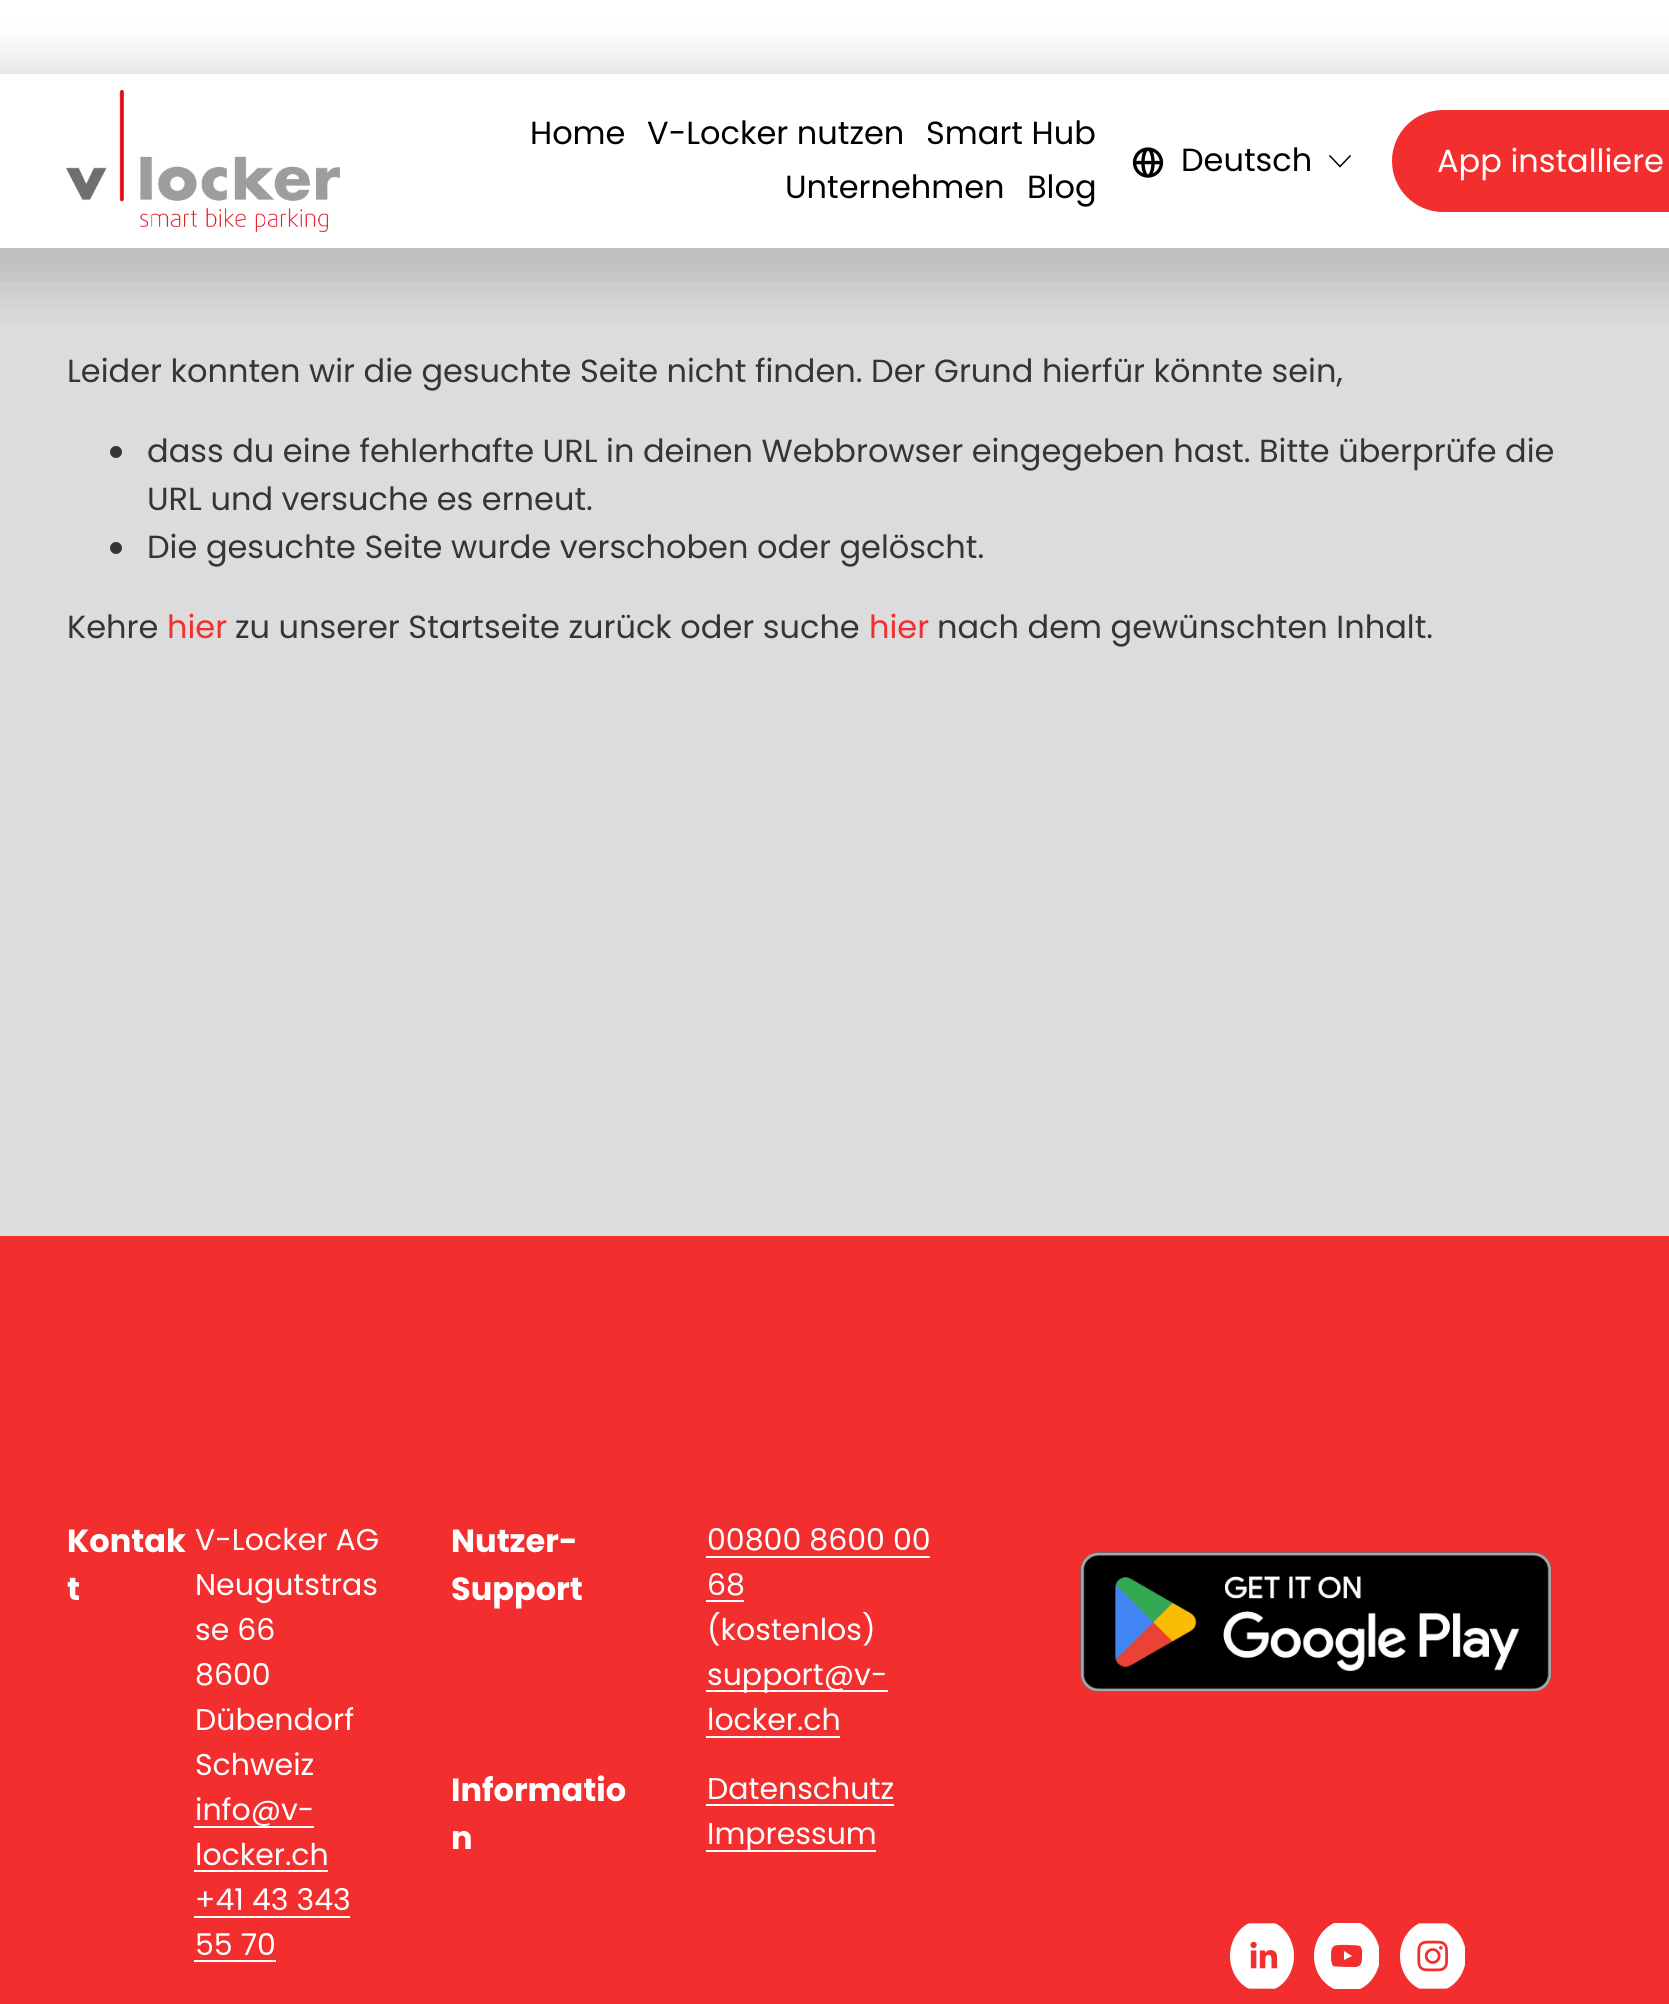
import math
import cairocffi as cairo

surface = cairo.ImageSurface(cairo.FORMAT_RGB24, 1669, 2004)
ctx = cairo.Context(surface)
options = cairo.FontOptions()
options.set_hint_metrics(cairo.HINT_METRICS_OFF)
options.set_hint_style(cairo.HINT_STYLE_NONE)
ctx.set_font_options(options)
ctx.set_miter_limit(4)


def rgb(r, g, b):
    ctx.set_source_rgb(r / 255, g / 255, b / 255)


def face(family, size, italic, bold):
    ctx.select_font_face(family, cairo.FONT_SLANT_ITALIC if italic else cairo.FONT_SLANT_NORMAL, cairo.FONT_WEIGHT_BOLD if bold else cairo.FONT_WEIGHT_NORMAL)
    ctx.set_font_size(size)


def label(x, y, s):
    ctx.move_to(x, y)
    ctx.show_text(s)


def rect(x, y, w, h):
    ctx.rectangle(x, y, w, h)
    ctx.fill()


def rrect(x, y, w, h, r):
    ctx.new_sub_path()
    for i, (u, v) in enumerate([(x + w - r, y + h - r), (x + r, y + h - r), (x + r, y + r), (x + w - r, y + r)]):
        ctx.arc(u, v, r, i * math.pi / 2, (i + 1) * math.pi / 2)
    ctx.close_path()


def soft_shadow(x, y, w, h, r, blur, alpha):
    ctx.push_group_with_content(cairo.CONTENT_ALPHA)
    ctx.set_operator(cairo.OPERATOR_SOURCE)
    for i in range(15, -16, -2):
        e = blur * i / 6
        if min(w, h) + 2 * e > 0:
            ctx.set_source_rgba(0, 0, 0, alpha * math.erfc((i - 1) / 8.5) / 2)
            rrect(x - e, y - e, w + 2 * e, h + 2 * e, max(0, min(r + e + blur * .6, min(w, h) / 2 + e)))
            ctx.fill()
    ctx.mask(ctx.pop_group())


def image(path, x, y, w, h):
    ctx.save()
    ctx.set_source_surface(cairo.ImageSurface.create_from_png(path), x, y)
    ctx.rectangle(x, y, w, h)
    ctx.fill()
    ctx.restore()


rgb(220, 220, 220)
ctx.paint()
rgb(255, 255, 255)
rect(0, 0, 1669, 248)
ctx.save()
ctx.set_fill_rule(cairo.FILL_RULE_EVEN_ODD)
ctx.new_path()
ctx.move_to(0, 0)
ctx.line_to(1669, 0)
ctx.line_to(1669, 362)
ctx.line_to(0, 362)
ctx.close_path()
ctx.move_to(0, 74)
ctx.line_to(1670, 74)
ctx.line_to(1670, 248)
ctx.line_to(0, 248)
ctx.close_path()
ctx.clip()
rgb(0, 0, 0)
soft_shadow(-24, 64, 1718, 222, 0, 25, 0.15)
ctx.restore()
image('image0.png', 66, 90, 274, 142)
face('Poppins', 32, 0, 0)
rgb(0, 0, 0)
label(530, 144, 'Home')
label(647, 144, 'V-Locker nutzen')
label(926, 144, 'Smart Hub')
label(785, 198, 'Unternehmen')
label(1027, 198, 'Blog')
image('image1.png', 1132, 147, 32, 31)
label(1181, 171, 'Deutsch')
ctx.new_path()
ctx.move_to(1350, 156)
ctx.line_to(1340, 166.5)
ctx.line_to(1330, 156)
ctx.set_line_width(1.5)
ctx.set_line_cap(cairo.LINE_CAP_SQUARE)
ctx.stroke()
rgb(242, 46, 46)
rrect(1392, 110, 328, 102, 51)
ctx.fill()
rgb(255, 255, 255)
label(1437, 172, 'App installiere')
rgb(54, 53, 53)
label(67, 382, 'Leider konnten wir die gesuchte Seite nicht finden. Der Grund hierfür könnte sein,')
ctx.new_path()
ctx.arc(116, 452, 6, 0, 2 * math.pi)
ctx.fill()
label(147, 462, 'dass du eine fehlerhafte URL in deinen Webbrowser eingegeben hast. Bitte überprüfe die')
label(147, 510, 'URL und versuche es erneut.')
ctx.new_path()
ctx.arc(116, 548, 6, 0, 2 * math.pi)
ctx.fill()
label(147, 558, 'Die gesuchte Seite wurde verschoben oder gelöscht.')
label(67, 638, 'Kehre')
rgb(242, 46, 46)
label(167, 638, 'hier')
rgb(54, 53, 53)
label(235, 638, 'zu unserer Startseite zurück oder suche')
rgb(242, 46, 46)
label(869, 638, 'hier')
rgb(54, 53, 53)
label(937, 638, 'nach dem gewünschten Inhalt.')
rgb(242, 46, 46)
rect(0, 1236, 1669, 768)
face('Poppins', 32, 0, 1)
rgb(255, 255, 255)
label(67, 1552, 'Kontak')
label(67, 1600, 't')
face('Poppins', 30, 0, 0)
label(195, 1550, 'V-Locker AG')
label(195, 1595, 'Neugutstras')
label(195, 1640, 'se 66')
label(195, 1685, '8600')
label(195, 1730, 'Dübendorf')
label(195, 1775, 'Schweiz')
label(195, 1820, 'info@v-')
rect(194, 1826, 120, 2)
label(195, 1865, 'locker.ch')
rect(194, 1870, 134, 2)
label(195, 1910, '+41 43 343')
rect(194, 1916, 156, 2)
label(195, 1955, '55 70')
rect(194, 1960, 82, 2)
face('Poppins', 32, 0, 1)
label(451, 1552, 'Nutzer-')
label(451, 1600, 'Support')
face('Poppins', 30, 0, 0)
label(707, 1550, '00800 8600 00')
rect(706, 1556, 224, 2)
label(707, 1595, '68')
rect(706, 1600, 38, 2)
label(707, 1640, '(kostenlos)')
rect(706, 1690, 182, 2)
label(707, 1685, 'support@v-')
label(707, 1730, 'locker.ch')
rect(706, 1736, 134, 2)
image('image2.png', 1080, 1552, 472, 140)
face('Poppins', 32, 0, 1)
label(451, 1801, 'Informatio')
label(451, 1849, 'n')
face('Poppins', 30, 0, 0)
label(707, 1799, 'Datenschutz')
rect(706, 1804, 188, 2)
rect(706, 1850, 170, 2)
label(707, 1844, 'Impressum')
image('image3.png', 1230, 1923, 64, 66)
ctx.set_fill_rule(cairo.FILL_RULE_EVEN_ODD)
ctx.new_path()
ctx.move_to(1334, 1989)
ctx.curve_to(1322, 1983, 1314, 1971, 1314, 1956)
ctx.curve_to(1314, 1941, 1322, 1929, 1334, 1923)
ctx.line_to(1360, 1923)
ctx.curve_to(1369, 1927, 1376, 1936, 1379, 1947)
ctx.line_to(1379, 1965)
ctx.curve_to(1376, 1976, 1369, 1985, 1360, 1989)
ctx.close_path()
ctx.move_to(1362, 1957)
ctx.curve_to(1362, 1954, 1363, 1949, 1360, 1946)
ctx.curve_to(1358, 1945, 1336, 1944, 1334, 1946)
ctx.curve_to(1331, 1948, 1331, 1952, 1331, 1955)
ctx.curve_to(1331, 1958, 1331, 1963, 1333, 1966)
ctx.curve_to(1335, 1967, 1353, 1967, 1356, 1967)
ctx.line_to(1359, 1966)
ctx.curve_to(1362, 1964, 1362, 1960, 1362, 1957)
ctx.close_path()
ctx.move_to(1344, 1960)
ctx.line_to(1344, 1951)
ctx.line_to(1352, 1956)
ctx.close_path()
ctx.fill()
image('image4.png', 1400, 1923, 65, 66)
surface.write_to_png('render.png')
